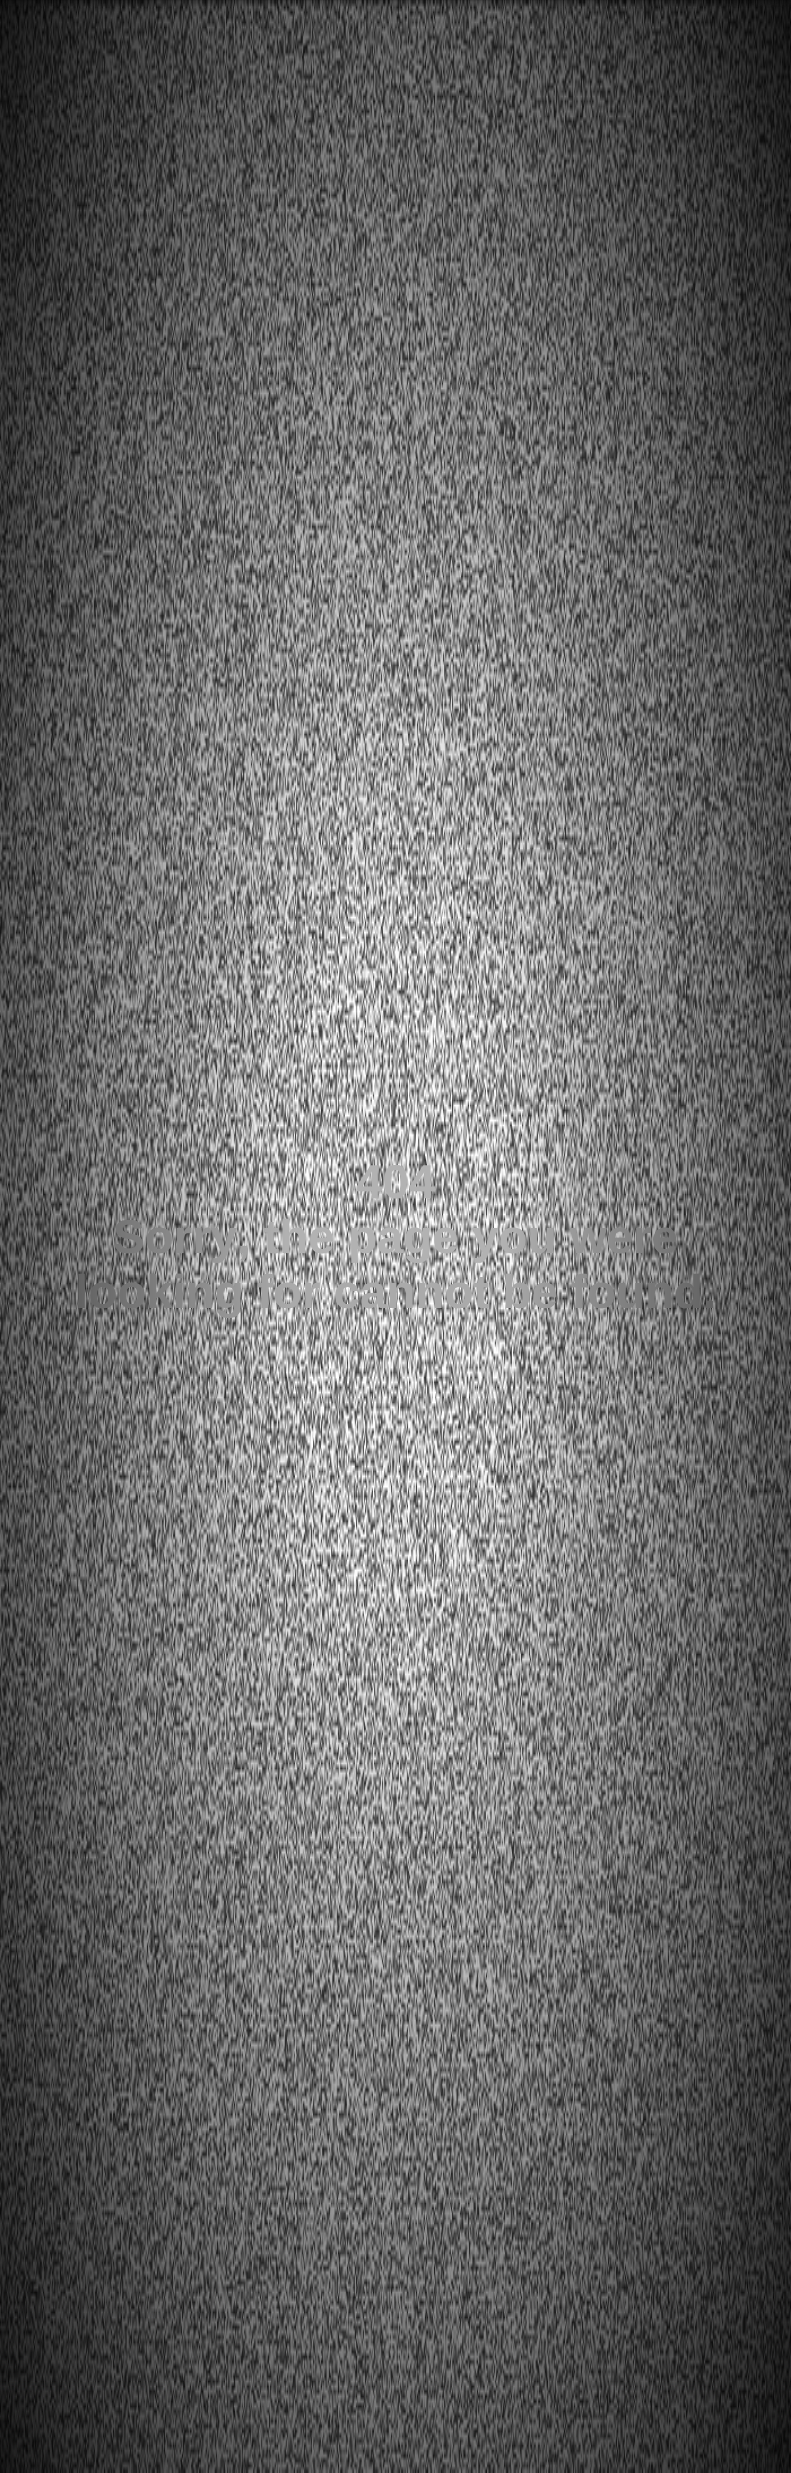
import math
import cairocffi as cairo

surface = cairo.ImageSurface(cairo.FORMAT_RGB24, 791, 2473)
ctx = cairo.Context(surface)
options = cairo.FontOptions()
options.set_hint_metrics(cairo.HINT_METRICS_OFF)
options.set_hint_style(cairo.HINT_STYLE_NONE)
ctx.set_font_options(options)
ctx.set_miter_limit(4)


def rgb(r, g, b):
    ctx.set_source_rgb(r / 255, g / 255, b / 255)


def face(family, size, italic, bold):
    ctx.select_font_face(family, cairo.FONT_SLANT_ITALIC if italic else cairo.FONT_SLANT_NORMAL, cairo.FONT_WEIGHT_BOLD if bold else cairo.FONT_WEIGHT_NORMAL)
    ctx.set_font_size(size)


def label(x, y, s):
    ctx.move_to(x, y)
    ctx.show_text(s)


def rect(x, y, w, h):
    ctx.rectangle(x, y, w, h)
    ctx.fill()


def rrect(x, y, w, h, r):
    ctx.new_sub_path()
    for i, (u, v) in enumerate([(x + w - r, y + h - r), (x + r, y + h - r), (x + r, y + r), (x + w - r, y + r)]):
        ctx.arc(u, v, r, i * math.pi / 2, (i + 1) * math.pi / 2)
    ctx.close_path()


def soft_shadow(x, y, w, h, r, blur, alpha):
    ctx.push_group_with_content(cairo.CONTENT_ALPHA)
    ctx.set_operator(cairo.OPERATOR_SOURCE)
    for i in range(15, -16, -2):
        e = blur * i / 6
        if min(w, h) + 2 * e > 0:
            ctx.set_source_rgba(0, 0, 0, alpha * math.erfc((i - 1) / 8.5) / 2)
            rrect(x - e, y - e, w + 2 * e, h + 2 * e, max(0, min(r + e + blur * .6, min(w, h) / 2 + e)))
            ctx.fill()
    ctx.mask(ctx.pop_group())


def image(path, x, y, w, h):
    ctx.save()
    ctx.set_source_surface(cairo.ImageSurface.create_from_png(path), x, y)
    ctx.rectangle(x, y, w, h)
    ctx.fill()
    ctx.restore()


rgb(255, 255, 255)
ctx.paint()
image('image0.png', 0, 0, 791, 2473)
face('Liberation Sans', 47.5, 0, 1)
rgb(178, 178, 178)
label(356, 1198, '404')
label(113, 1253, 'Sorry, the page you were')
rgb(170, 170, 170)
label(75, 1308, 'looking for cannot be found.')
gradient = cairo.RadialGradient(0, 0, 0, 0, 0, 1)
gradient.set_matrix(cairo.Matrix(1 / 559, 0, 0, 1 / 1749, -1 * 396 / 559, -1 * 1237 / 1749))
gradient.add_color_stop_rgba(0, 0, 0, 0, 0)
gradient.add_color_stop_rgba(0.19, 0, 0, 0, 0)
gradient.add_color_stop_rgba(1, 0, 0, 0, 0.9)
ctx.set_source(gradient)
rect(0, 0, 791, 2473)
rgb(0, 0, 0)
soft_shadow(0, -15, 791, 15, 0, 5, 0.3)
soft_shadow(0, -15, 791, 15, 0, 5, 0.3)
soft_shadow(0, -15, 791, 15, 0, 5, 0.3)
surface.write_to_png('render.png')
